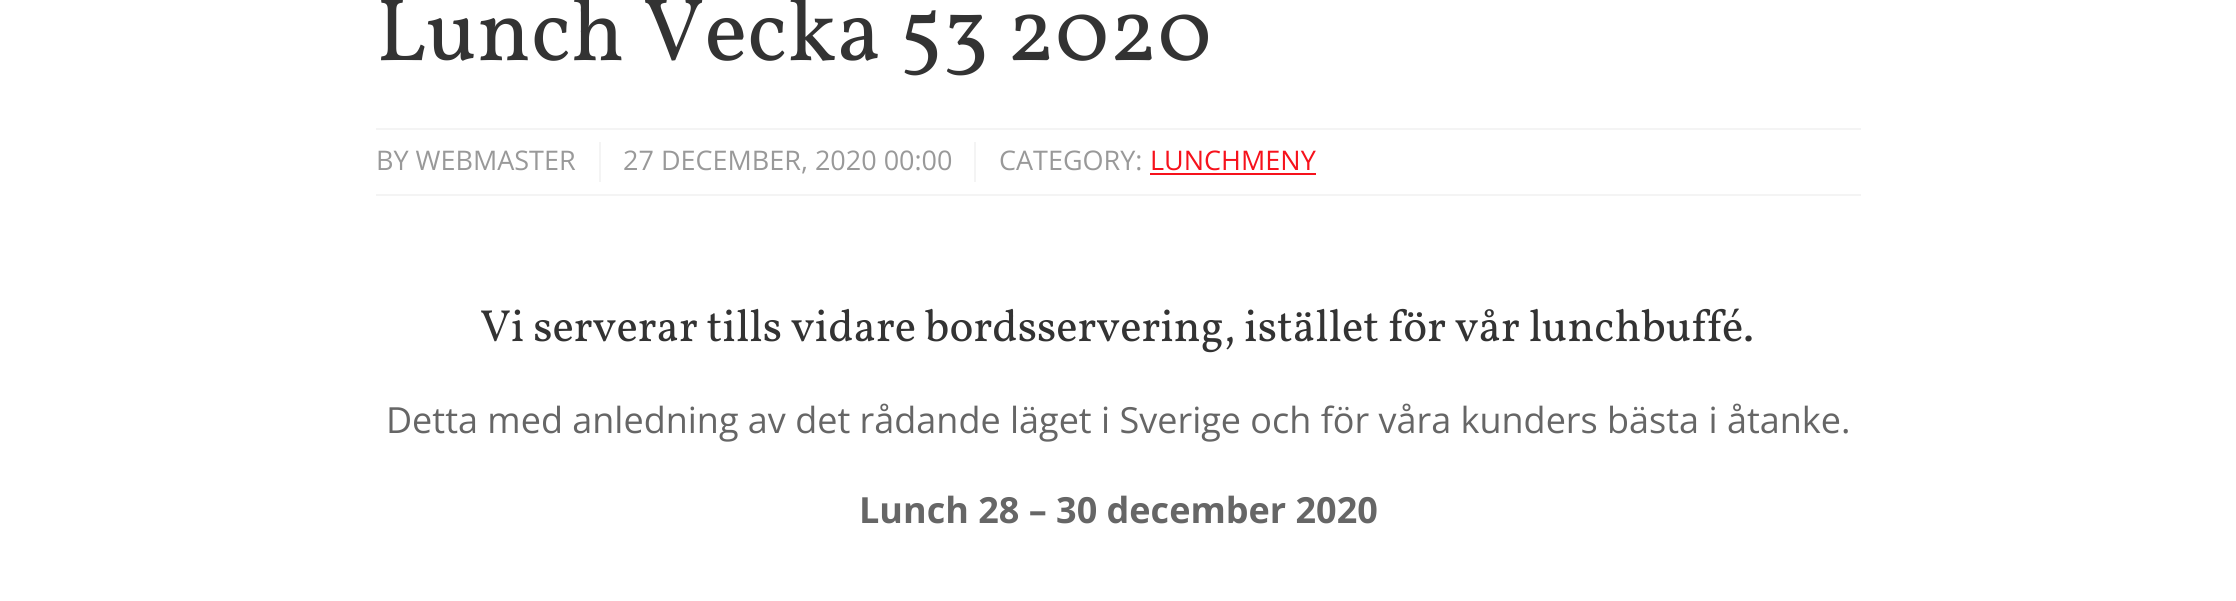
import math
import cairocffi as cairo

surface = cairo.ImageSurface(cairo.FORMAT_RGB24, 2236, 601)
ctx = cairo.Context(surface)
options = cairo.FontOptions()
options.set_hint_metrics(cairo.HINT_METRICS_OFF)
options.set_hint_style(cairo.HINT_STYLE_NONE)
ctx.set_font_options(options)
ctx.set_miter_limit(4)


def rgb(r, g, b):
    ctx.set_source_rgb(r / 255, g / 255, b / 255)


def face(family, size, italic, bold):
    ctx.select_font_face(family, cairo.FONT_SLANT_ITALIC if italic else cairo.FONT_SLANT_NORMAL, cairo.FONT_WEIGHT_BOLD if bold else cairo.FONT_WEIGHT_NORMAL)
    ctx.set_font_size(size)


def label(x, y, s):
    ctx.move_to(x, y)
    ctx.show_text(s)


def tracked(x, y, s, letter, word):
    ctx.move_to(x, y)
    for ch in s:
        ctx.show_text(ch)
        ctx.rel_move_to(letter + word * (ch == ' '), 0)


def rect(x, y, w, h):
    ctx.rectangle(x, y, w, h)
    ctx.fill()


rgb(255, 255, 255)
ctx.paint()
face('Vollkorn', 90, 0, 0)
rgb(51, 51, 51)
label(376, 60, 'Lunch Vecka 53 2020')
rgb(244, 244, 244)
rect(376, 128, 1485, 2)
rect(376, 194, 1485, 2)
rect(599, 142, 2, 40)
face('Open Sans', 27, 0, 0)
rgb(153, 153, 153)
label(376, 170, 'BY WEBMASTER')
rgb(244, 244, 244)
rect(974, 142, 2, 40)
rgb(153, 153, 153)
label(623, 170, '27 DECEMBER, 2020 00:00')
label(999, 170, 'CATEGORY:')
rgb(246, 18, 28)
label(1150, 170, 'LUNCHMENY')
rect(1150, 173, 166, 2)
face('Vollkorn', 45, 0, 0)
rgb(51, 51, 51)
tracked(480, 341, 'Vi serverar tills vidare bordsservering, istället för vår lunchbuffé.', 0, -0.25)
face('Open Sans', 36, 0, 0)
rgb(102, 102, 102)
label(386, 433, 'Detta med anledning av det rådande läget i Sverige och för våra kunders bästa i åtanke.')
face('Open Sans', 36, 0, 1)
label(859, 523, 'Lunch 28 – 30 december 2020')
surface.write_to_png('render.png')
